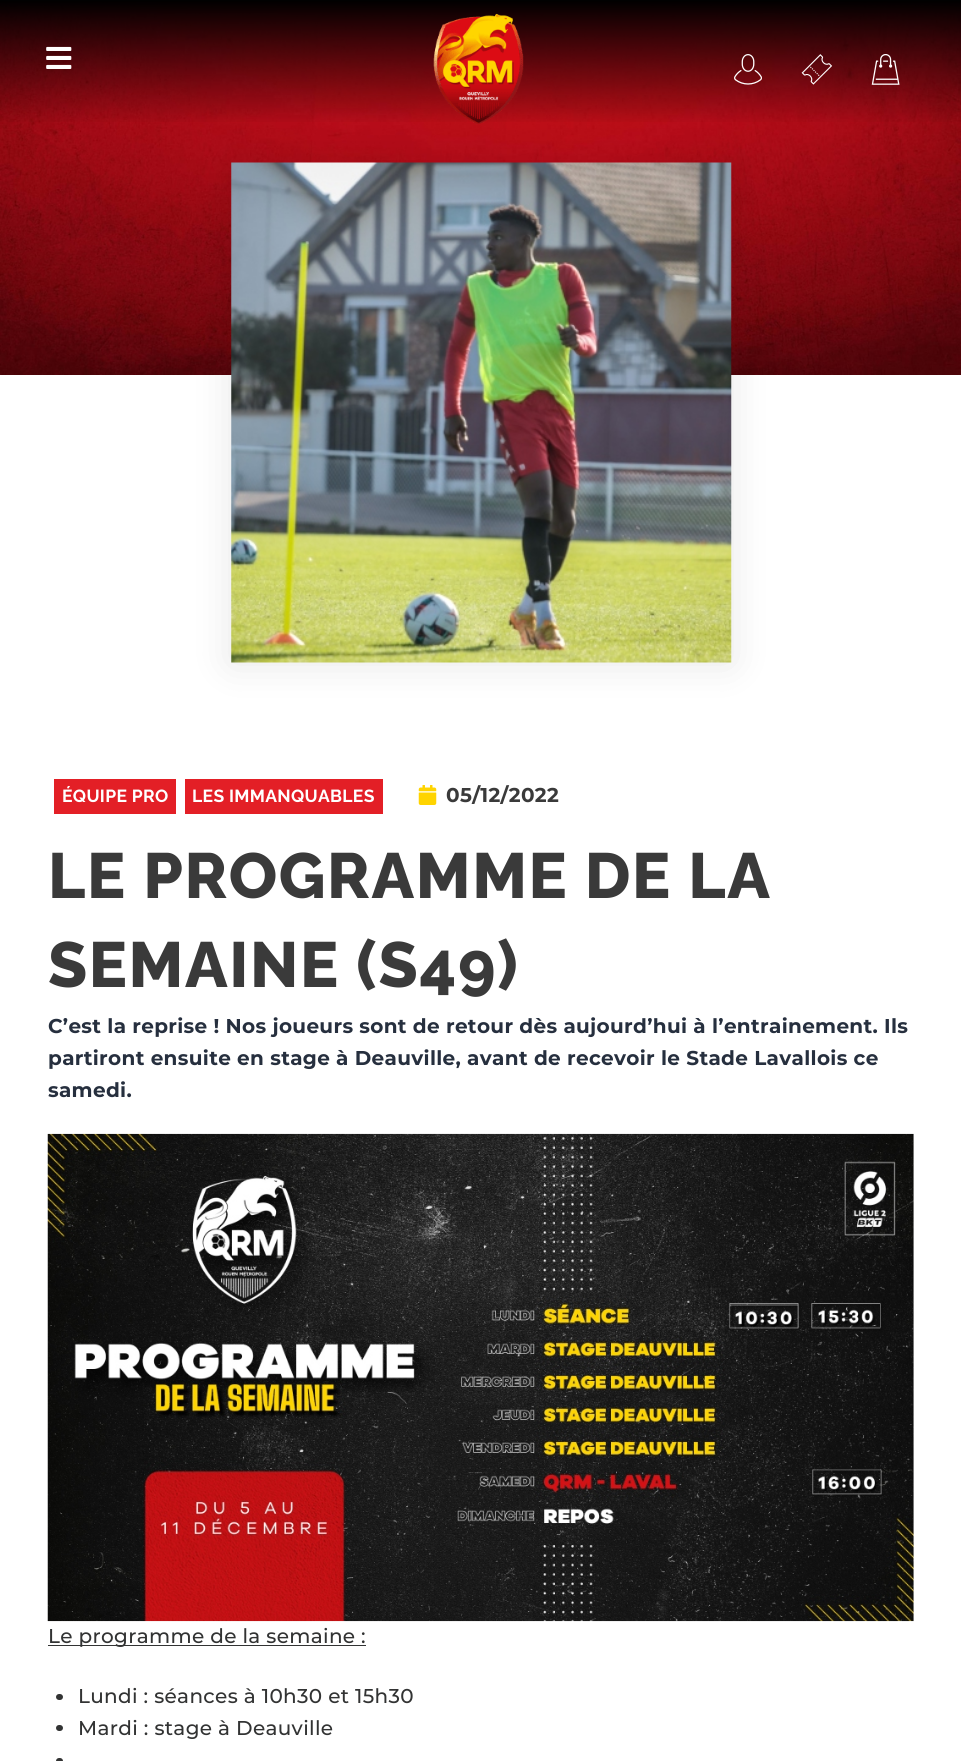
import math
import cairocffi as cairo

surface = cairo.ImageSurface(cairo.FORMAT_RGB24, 961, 1761)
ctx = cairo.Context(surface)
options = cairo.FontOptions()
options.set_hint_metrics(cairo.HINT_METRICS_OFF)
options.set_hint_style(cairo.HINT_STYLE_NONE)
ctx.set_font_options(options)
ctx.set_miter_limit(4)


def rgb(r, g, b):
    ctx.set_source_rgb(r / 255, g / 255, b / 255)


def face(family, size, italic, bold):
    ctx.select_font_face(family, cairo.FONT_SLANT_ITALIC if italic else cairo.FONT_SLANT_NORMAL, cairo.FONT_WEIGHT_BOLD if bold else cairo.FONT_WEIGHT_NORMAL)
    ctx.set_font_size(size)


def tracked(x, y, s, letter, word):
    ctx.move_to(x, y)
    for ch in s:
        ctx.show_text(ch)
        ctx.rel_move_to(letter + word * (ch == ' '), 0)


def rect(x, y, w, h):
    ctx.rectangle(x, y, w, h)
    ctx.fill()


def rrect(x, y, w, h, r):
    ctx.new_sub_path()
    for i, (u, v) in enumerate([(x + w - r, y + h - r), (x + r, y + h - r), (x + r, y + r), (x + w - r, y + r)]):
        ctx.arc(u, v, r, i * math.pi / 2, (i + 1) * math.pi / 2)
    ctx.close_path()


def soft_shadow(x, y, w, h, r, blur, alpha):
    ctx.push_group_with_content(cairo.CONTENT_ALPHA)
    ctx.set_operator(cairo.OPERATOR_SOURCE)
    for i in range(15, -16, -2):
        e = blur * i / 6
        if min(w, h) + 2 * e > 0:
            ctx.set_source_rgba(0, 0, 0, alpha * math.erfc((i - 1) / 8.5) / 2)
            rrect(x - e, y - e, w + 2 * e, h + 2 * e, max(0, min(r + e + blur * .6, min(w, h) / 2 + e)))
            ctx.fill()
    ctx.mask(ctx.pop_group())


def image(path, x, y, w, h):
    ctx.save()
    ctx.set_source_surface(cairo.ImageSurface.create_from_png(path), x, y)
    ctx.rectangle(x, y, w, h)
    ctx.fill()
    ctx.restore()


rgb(255, 255, 255)
ctx.paint()
image('image5.png', 0, 1, 961, 374)
rgb(0, 0, 0)
soft_shadow(231, 163, 500, 500, 0, 19, 0.1)
gradient = cairo.LinearGradient(481, 0, 481, 125)
gradient.add_color_stop_rgba(0, 0, 0, 0, 1)
gradient.add_color_stop_rgba(1, 0, 0, 0, 0)
ctx.set_source(gradient)
rect(0, 0, 961, 122)
image('image0.png', 46, 46, 26, 23)
image('image1.png', 433, 13, 91, 112)
image('image2.png', 734, 54, 28, 31)
image('image3.png', 801, 54, 32, 31)
image('image4.png', 871, 54, 29, 31)
image('image6.png', 231, 162, 501, 501)
rgb(227, 31, 38)
rect(54, 779, 122, 35)
face('Raleway', 17.5, 0, 1)
rgb(255, 255, 255)
tracked(62, 802, 'ÉQUIPE PRO', 0.33, 0)
rgb(227, 31, 38)
rect(185, 779, 198, 35)
rgb(255, 255, 255)
tracked(192, 802, 'LES IMMANQUABLES', 0.33, 0)
image('image7.png', 418, 785, 19, 20)
face('Montserrat', 20, 0, 1)
rgb(58, 58, 58)
tracked(446, 802, '05/12/2022', 0.33, 0)
face('Raleway ExtraBold', 63.75, 0, 0)
tracked(48, 898, 'LE PROGRAMME DE LA', 1.6, 0)
tracked(48, 987, 'SEMAINE (S49)', 1.6, 0)
face('Montserrat', 20, 0, 1)
rgb(38, 47, 62)
tracked(48, 1033, 'C’est la reprise ! Nos joueurs sont de retour dès aujourd’hui à l’entrainement. Ils', 0.33, 0)
tracked(48, 1065, 'partiront ensuite en stage à Deauville, avant de recevoir le Stade Lavallois ce', 0.33, 0)
tracked(48, 1097, 'samedi.', 0.33, 0)
image('image8.png', 47, 1133, 867, 489)
rgb(50, 51, 51)
rect(48, 1645, 318, 1)
face('Montserrat Medium', 20, 0, 0)
tracked(48, 1643, 'Le programme de la semaine :', 0.33, 0)
rrect(56, 1694, 7, 6, 3)
ctx.fill()
tracked(78, 1703, 'Lundi : séances à 10h30 et 15h30', 0.33, 0)
rrect(56, 1725, 7, 6, 3)
ctx.fill()
tracked(78, 1735, 'Mardi : stage à Deauville', 0.33, 0)
rrect(56, 1758, 7, 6, 3)
ctx.fill()
surface.write_to_png('render.png')
